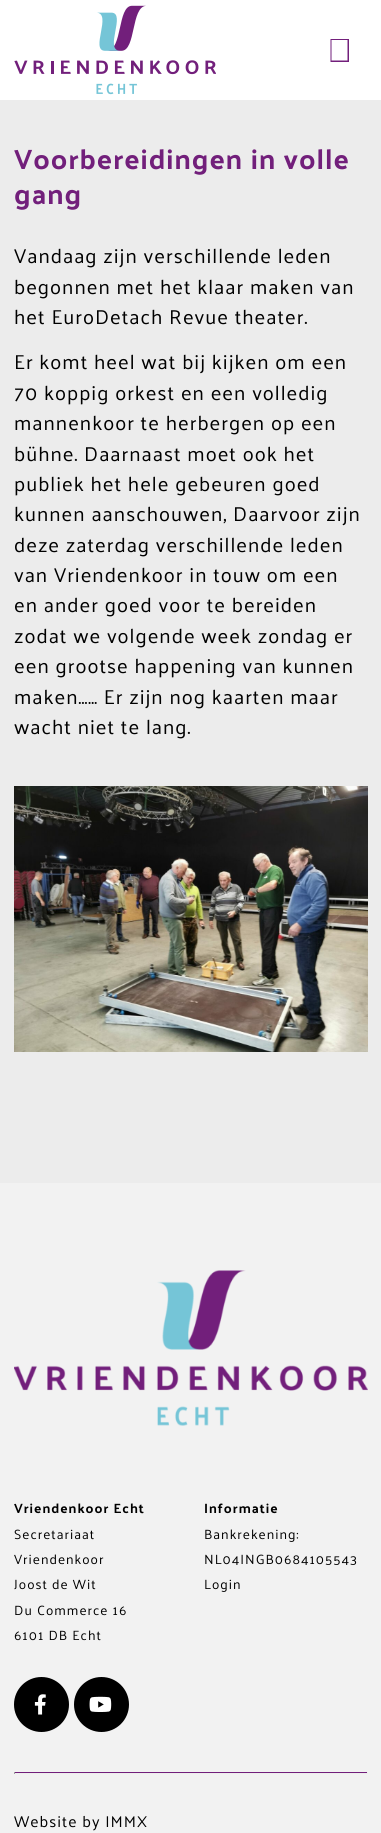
import math
import cairocffi as cairo

surface = cairo.ImageSurface(cairo.FORMAT_RGB24, 381, 1833)
ctx = cairo.Context(surface)
options = cairo.FontOptions()
options.set_hint_metrics(cairo.HINT_METRICS_OFF)
options.set_hint_style(cairo.HINT_STYLE_NONE)
ctx.set_font_options(options)
ctx.set_miter_limit(4)


def rgb(r, g, b):
    ctx.set_source_rgb(r / 255, g / 255, b / 255)


def face(family, size, italic, bold):
    ctx.select_font_face(family, cairo.FONT_SLANT_ITALIC if italic else cairo.FONT_SLANT_NORMAL, cairo.FONT_WEIGHT_BOLD if bold else cairo.FONT_WEIGHT_NORMAL)
    ctx.set_font_size(size)


def tracked(x, y, s, letter, word):
    ctx.move_to(x, y)
    for ch in s:
        ctx.show_text(ch)
        ctx.rel_move_to(letter + word * (ch == ' '), 0)


def rect(x, y, w, h):
    ctx.rectangle(x, y, w, h)
    ctx.fill()


def image(path, x, y, w, h):
    ctx.save()
    ctx.set_source_surface(cairo.ImageSurface.create_from_png(path), x, y)
    ctx.rectangle(x, y, w, h)
    ctx.fill()
    ctx.restore()


rgb(255, 255, 255)
ctx.paint()
image('image0.png', 14, 5, 202, 90)
rgb(114, 31, 123)
ctx.new_path()
ctx.move_to(330.5, 39)
ctx.line_to(349, 39)
ctx.line_to(349, 62)
ctx.line_to(330.5, 62)
ctx.close_path()
ctx.move_to(331.5, 40)
ctx.line_to(331.5, 60.5)
ctx.line_to(347.5, 60.5)
ctx.line_to(347.5, 40)
ctx.close_path()
ctx.fill()
rgb(236, 236, 236)
rect(0, 100, 381, 1083)
face('Palanquin', 28.1, 0, 1)
rgb(114, 31, 123)
tracked(14, 169, 'Voorbereidingen in volle', 1, 0)
tracked(14, 204, 'gang', 1, 0)
face('Palanquin', 20.25, 0, 0)
rgb(0, 0, 0)
tracked(14, 263, 'Vandaag zijn verschillende leden', 1, 0)
tracked(14, 294, 'begonnen met het klaar maken van', 1, 0)
tracked(14, 324, 'het EuroDetach Revue theater.', 1, 0)
tracked(14, 369, 'Er komt heel wat bij kijken om een', 1, 0)
tracked(14, 400, '70 koppig orkest en een volledig', 1, 0)
tracked(14, 430, 'mannenkoor te herbergen op een', 1, 0)
tracked(14, 461, 'bühne. Daarnaast moet ook het', 1, 0)
tracked(14, 491, 'publiek het hele gebeuren goed', 1, 0)
tracked(14, 521, 'kunnen aanschouwen, Daarvoor zijn', 1, 0)
tracked(14, 552, 'deze zaterdag verschillende leden', 1, 0)
tracked(14, 582, 'van Vriendenkoor in touw om een', 1, 0)
tracked(14, 612, 'en ander goed voor te bereiden', 1, 0)
tracked(14, 643, 'zodat we volgende week zondag er', 1, 0)
tracked(14, 673, 'een grootse happening van kunnen', 1, 0)
tracked(14, 704, 'maken…… Er zijn nog kaarten maar', 1, 0)
tracked(14, 734, 'wacht niet te lang.', 1, 0)
image('image1.png', 14, 786, 354, 266)
rgb(242, 242, 242)
rect(0, 1183, 381, 650)
image('image2.png', 14, 1270, 354, 156)
face('Palanquin', 13.5, 0, 1)
rgb(0, 0, 0)
tracked(14, 1513, 'Vriendenkoor Echt', 1, 0)
face('Palanquin', 13.5, 0, 0)
tracked(14, 1539, 'Secretariaat', 1, 0)
tracked(14, 1564, 'Vriendenkoor', 1, 0)
tracked(14, 1589, 'Joost de Wit', 1, 0)
tracked(14, 1615, 'Du Commerce 16', 1, 0)
tracked(14, 1640, '6101 DB Echt', 1, 0)
face('Palanquin', 13.5, 0, 1)
tracked(204, 1513, 'Informatie', 1, 0)
face('Palanquin', 13.5, 0, 0)
tracked(204, 1539, 'Bankrekening:', 1, 0)
tracked(204, 1564, 'NL04INGB0684105543', 1, 0)
tracked(204, 1589, 'Login', 1, 0)
ctx.new_path()
ctx.arc(41.5, 1704.5, 27.5, 0, 2 * math.pi)
ctx.fill()
image('image3.png', 34, 1694, 12, 21)
ctx.arc(101.5, 1704.5, 27.5, 0, 2 * math.pi)
ctx.fill()
image('image4.png', 89, 1696, 23, 16)
rgb(114, 31, 123)
rect(14, 1772, 354, 1)
rgb(238, 238, 238)
rect(367, 1772, 1, 2)
rect(14, 1773, 354, 1)
rgb(159, 159, 159)
rect(14, 1772, 1, 2)
face('Palanquin', 15.75, 0, 0)
rgb(0, 0, 0)
tracked(14, 1827, 'Website by IMMX', 1, 0)
surface.write_to_png('render.png')
